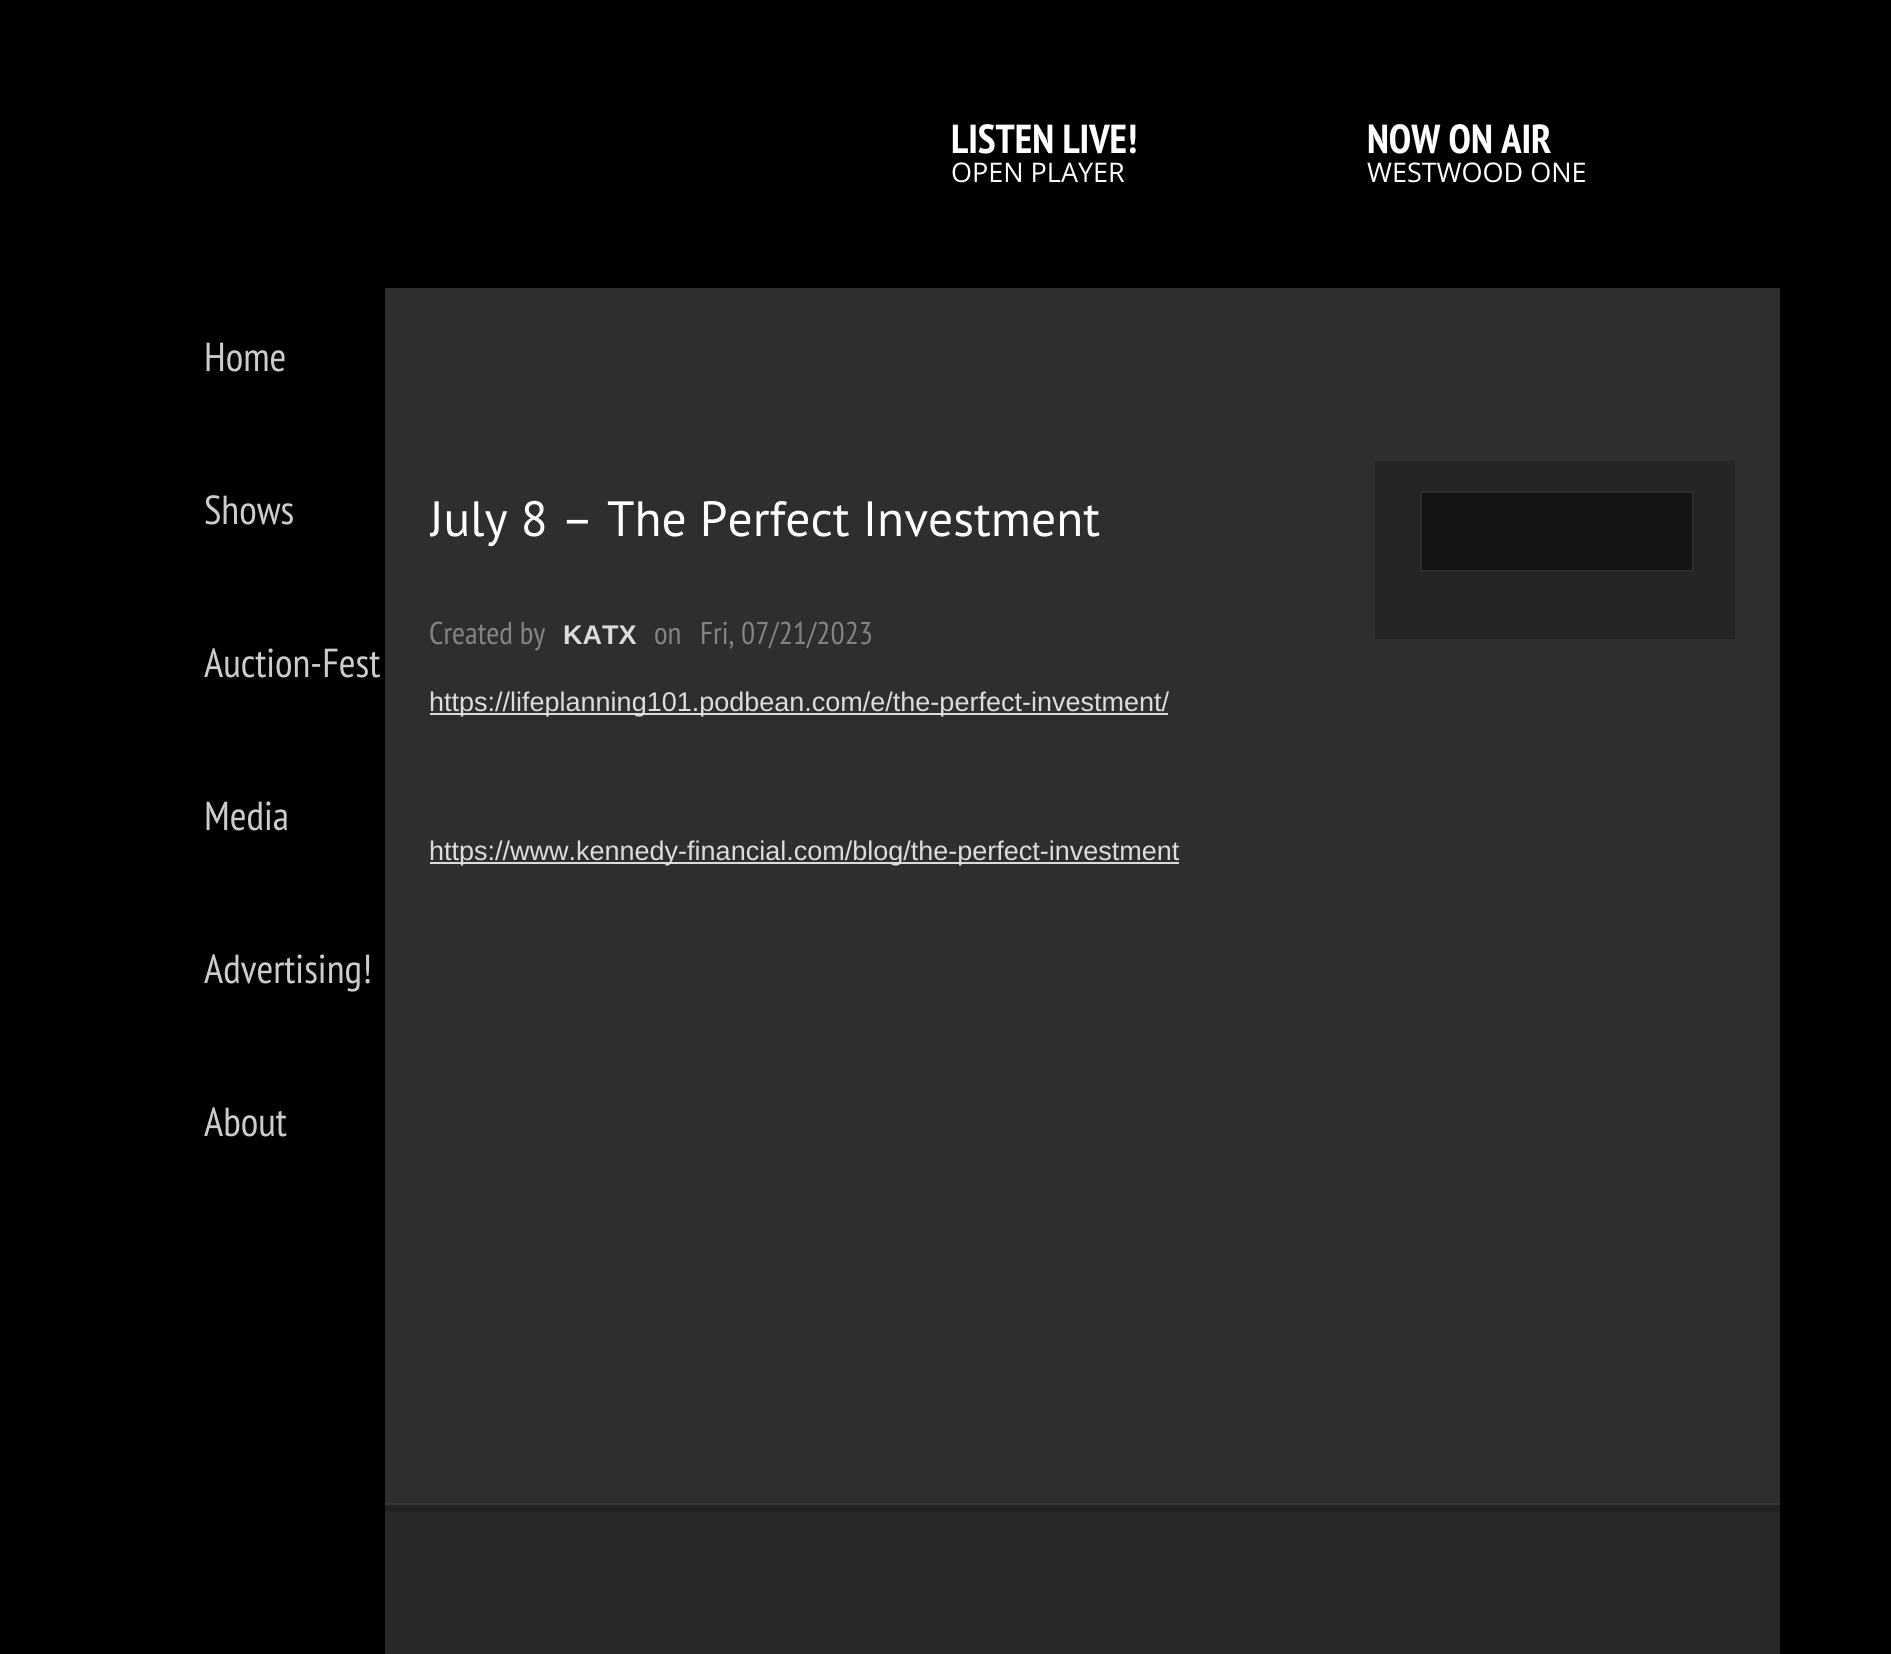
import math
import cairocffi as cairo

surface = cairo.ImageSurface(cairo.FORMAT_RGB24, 1891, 1654)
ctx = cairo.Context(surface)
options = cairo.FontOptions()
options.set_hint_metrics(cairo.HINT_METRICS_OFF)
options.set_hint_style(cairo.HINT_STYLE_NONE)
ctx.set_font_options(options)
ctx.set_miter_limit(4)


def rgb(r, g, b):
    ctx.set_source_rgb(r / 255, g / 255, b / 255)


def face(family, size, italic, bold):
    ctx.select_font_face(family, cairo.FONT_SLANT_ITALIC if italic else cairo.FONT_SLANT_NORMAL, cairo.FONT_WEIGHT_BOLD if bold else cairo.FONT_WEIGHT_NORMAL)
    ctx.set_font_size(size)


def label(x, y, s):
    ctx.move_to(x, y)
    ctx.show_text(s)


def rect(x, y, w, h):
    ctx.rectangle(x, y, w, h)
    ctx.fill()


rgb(0, 0, 0)
ctx.paint()
face('PT Sans Narrow', 40.5, 0, 1)
rgb(255, 255, 255)
label(951, 153, 'LISTEN LIVE!')
face('Open Sans', 27, 0, 0)
label(951, 182, 'OPEN PLAYER')
face('PT Sans Narrow', 40.5, 0, 1)
label(1367, 153, 'NOW ON AIR')
face('Open Sans', 27, 0, 0)
label(1367, 182, 'WESTWOOD ONE')
face('PT Sans Narrow', 40.5, 0, 0)
rgb(204, 204, 204)
label(204, 371, 'Home')
label(204, 524, 'Shows')
label(204, 677, 'Auction-Fest')
label(204, 830, 'Media')
label(204, 983, 'Advertising!')
label(204, 1136, 'About')
rgb(46, 46, 46)
rect(385, 288, 1395, 1215)
rgb(54, 54, 54)
rect(385, 1503, 1395, 2)
ctx.save()
ctx.rectangle(430, 491, 900, 166)
ctx.clip()
face('PT Sans', 49.5, 0, 0)
rgb(255, 255, 255)
label(429, 536, 'July 8 – The Perfect Investment')
ctx.restore()
face('PT Sans Narrow', 31.5, 0, 0)
rgb(131, 131, 131)
label(429, 644, 'Created by')
face('Liberation Sans', 27, 0, 1)
rgb(220, 220, 220)
label(563, 644, 'KATX')
face('PT Sans Narrow', 31.5, 0, 0)
rgb(131, 131, 131)
label(654, 644, 'on')
label(700, 644, 'Fri, 07/21/2023')
rgb(220, 220, 220)
rect(430, 713, 738, 2)
face('Liberation Sans', 27, 0, 0)
label(429, 711, 'https://lifeplanning101.podbean.com/e/the-perfect-investment/')
rect(430, 862, 749, 2)
label(429, 860, 'https://www.kennedy-financial.com/blog/the-perfect-investment')
rgb(37, 37, 37)
rect(1375, 461, 360, 178)
rgb(21, 21, 21)
ctx.rectangle(1421, 492, 272, 79)
ctx.fill_preserve()
rgb(46, 46, 46)
ctx.stroke()
rgb(41, 41, 42)
rect(385, 1512, 1395, 142)
rgb(34, 34, 34)
rect(385, 1505, 1395, 7)
surface.write_to_png('render.png')
